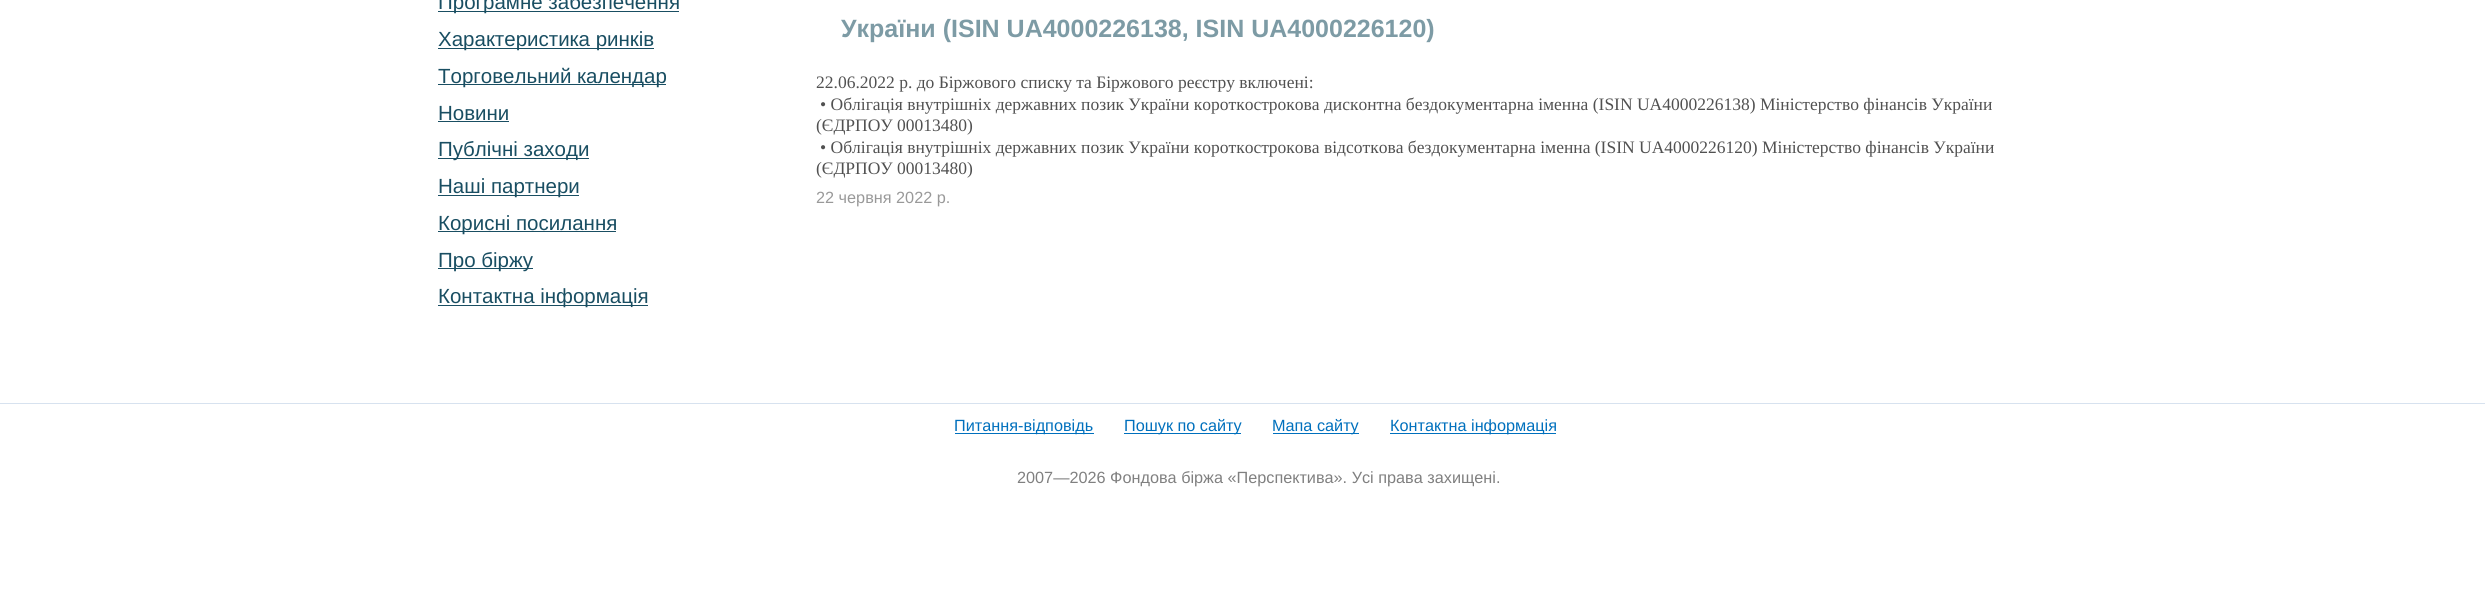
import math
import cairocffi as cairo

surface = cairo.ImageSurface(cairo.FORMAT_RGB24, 2485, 603)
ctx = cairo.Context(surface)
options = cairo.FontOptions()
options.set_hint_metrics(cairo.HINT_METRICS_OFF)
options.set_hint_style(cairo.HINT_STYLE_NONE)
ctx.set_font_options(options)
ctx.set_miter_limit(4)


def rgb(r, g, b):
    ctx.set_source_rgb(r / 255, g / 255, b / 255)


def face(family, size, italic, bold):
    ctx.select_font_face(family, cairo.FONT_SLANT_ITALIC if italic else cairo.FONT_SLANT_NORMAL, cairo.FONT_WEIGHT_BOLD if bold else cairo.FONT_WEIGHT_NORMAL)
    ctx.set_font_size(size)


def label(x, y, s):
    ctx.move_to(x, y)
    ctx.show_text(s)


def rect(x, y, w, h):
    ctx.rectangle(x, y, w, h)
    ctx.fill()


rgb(255, 255, 255)
ctx.paint()
rgb(25, 78, 98)
rect(438, 11, 241, 1)
face('Liberation Sans', 20.5, 0, 0)
label(438, 9, 'Програмне забезпечення')
rect(438, 48, 216, 1)
label(438, 46, 'Характеристика pинків')
rect(438, 84, 228, 1)
label(438, 83, 'Торговельний календар')
label(438, 120, 'Новини')
rect(438, 121, 71, 1)
rect(438, 158, 151, 1)
label(438, 156, 'Публічні заходи')
rect(438, 195, 141, 1)
label(438, 193, 'Наші партнери')
rect(438, 231, 178, 1)
label(438, 230, 'Корисні посилання')
rect(438, 268, 95, 1)
label(438, 267, 'Про біржу')
rect(438, 305, 210, 1)
label(438, 303, 'Контактна інформація')
face('Liberation Sans', 25, 0, 1)
rgb(125, 155, 165)
label(841, 37, 'України (ISIN UA4000226138, ISIN UA4000226120)')
face('Liberation Serif', 17.5, 0, 0)
rgb(81, 81, 81)
label(816, 88, '22.06.2022 р. до Біржового списку та Біржового реєстру включені:')
label(820, 110, '• Облігація внутрішніх державних позик України короткострокова дисконтна бездокументарна іменна (ISIN UA4000226138) Міністерство фінансів України')
label(816, 131, '(ЄДРПОУ 00013480)')
label(820, 153, '• Облігація внутрішніх державних позик України короткострокова відсоткова бездокументарна іменна (ISIN UA4000226120) Міністерство фінансів України')
label(816, 174, '(ЄДРПОУ 00013480)')
face('Liberation Sans', 16.25, 0, 0)
rgb(153, 153, 153)
label(816, 203, '22 червня 2022 р.')
rgb(215, 226, 239)
rect(0, 403, 2485, 1)
rgb(0, 112, 189)
rect(955, 433, 139, 1)
label(954, 431, 'Питання-відповідь')
rect(1124, 433, 117, 1)
label(1124, 431, 'Пошук по сайту')
rect(1273, 433, 86, 1)
label(1272, 431, 'Мапа сайту')
rect(1390, 433, 166, 1)
label(1390, 431, 'Контактна інформація')
rgb(128, 128, 128)
label(1017, 483, '2007—2026 Фондова біржа «Перспектива». Усі права захищені.')
surface.write_to_png('render.png')
